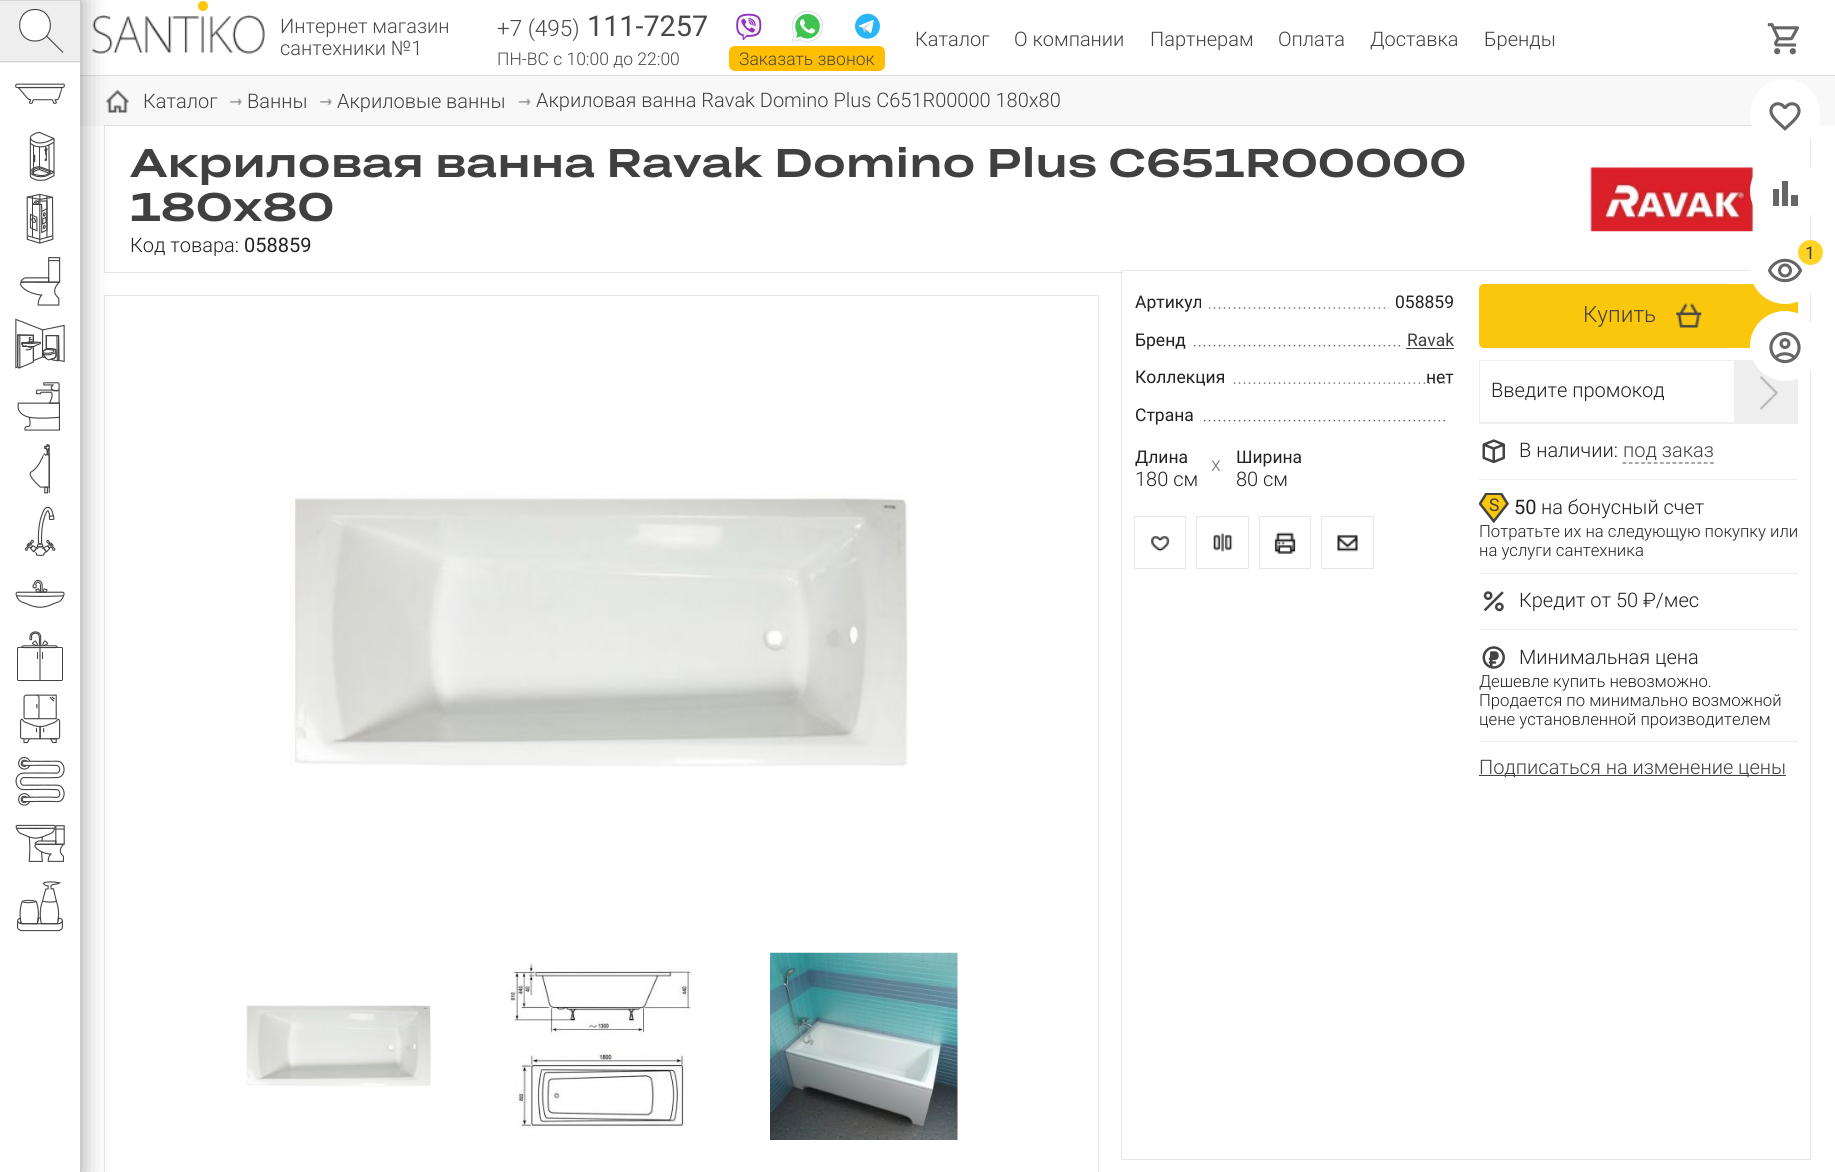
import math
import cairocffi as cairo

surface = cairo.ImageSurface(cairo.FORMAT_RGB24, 1835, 1172)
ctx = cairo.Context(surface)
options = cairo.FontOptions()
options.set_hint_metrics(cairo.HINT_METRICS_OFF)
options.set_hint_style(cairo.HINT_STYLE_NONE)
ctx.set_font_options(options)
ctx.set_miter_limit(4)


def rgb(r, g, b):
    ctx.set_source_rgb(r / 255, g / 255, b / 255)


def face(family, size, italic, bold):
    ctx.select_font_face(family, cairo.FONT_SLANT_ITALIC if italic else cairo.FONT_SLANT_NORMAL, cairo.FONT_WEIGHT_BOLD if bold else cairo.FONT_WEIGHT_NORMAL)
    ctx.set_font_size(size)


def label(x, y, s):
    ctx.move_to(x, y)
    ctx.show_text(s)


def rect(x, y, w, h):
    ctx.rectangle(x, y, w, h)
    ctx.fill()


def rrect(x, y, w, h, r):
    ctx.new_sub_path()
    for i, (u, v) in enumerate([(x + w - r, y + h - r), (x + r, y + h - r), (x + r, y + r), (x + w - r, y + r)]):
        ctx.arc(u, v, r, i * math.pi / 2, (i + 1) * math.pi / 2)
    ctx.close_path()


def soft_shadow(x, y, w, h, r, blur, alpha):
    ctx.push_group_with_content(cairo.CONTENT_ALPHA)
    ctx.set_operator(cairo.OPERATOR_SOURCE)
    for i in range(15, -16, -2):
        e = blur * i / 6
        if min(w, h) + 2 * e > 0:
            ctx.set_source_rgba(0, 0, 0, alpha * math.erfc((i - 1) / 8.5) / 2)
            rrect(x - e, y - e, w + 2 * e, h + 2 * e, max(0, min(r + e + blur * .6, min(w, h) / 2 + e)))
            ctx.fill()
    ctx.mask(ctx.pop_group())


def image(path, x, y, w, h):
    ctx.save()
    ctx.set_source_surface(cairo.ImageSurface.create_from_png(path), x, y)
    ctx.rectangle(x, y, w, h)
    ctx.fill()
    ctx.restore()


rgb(248, 248, 248)
ctx.paint()
ctx.rectangle(79.5, -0.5, 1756, 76)
rgb(223, 223, 223)
ctx.set_line_width(1)
ctx.stroke()
rgb(255, 255, 255)
rect(80, 0, 1755, 75)
image('image0.png', 92, 15, 173, 39)
rgb(250, 199, 12)
ctx.arc(203, 6, 5, 0, 2 * math.pi)
ctx.fill()
face('Roboto Light', 20, 0, 0)
rgb(72, 72, 72)
label(280, 33, 'Интернет магазин')
label(280, 55, 'сантехники №1')
face('Roboto Light', 22.5, 0, 0)
label(497, 36, '+7 (495)')
face('Roboto', 28.75, 0, 0)
label(587, 36, '111-7257')
image('image1.png', 736, 13, 26, 27)
image('image2.png', 791, 10, 33, 32)
image('image3.png', 855, 13, 25, 26)
face('Roboto Light', 17.5, 0, 0)
label(497, 65, 'ПН-ВС с 10:00 до 22:00')
rgb(255, 190, 0)
rrect(729, 46, 156, 25, 6)
ctx.fill()
rgb(72, 72, 72)
label(739, 65, 'Заказать звонок')
image('image22.png', 106, 89, 23, 24)
rgb(255, 255, 255)
rect(80, 126, 1755, 1046)
ctx.rectangle(104.5, 125.5, 1706, 147)
ctx.set_source_rgba(0, 0, 0, 0.1)
ctx.stroke()
ctx.rectangle(104.5, 295.5, 994, 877)
rgb(230, 230, 230)
ctx.stroke()
rgb(0, 0, 0)
soft_shadow(-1, -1, 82, 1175, 0, 12.5, 0.4)
rgb(255, 255, 255)
rect(0, 63, 80, 1109)
rgb(238, 238, 238)
rect(0, 1, 80, 62)
rgb(214, 214, 214)
rect(0, 0, 80, 1)
rect(0, 61, 80, 1)
rgb(255, 255, 255)
ctx.new_path()
ctx.move_to(35, 9.5)
ctx.curve_to(55.5, 9.5, 55.5, 41, 35, 41)
ctx.curve_to(14.5, 41, 14.5, 9.5, 35, 9.5)
ctx.close_path()
ctx.fill_preserve()
rgb(68, 68, 68)
ctx.set_line_width(1.1)
ctx.stroke()
ctx.new_path()
ctx.move_to(46.5, 36)
ctx.line_to(63, 52.5)
ctx.stroke()
image('image4.png', 15, 83, 50, 21)
image('image5.png', 29, 131, 26, 50)
image('image6.png', 26, 193, 28, 51)
image('image7.png', 20, 257, 41, 49)
image('image8.png', 15, 318, 50, 51)
image('image9.png', 17, 382, 43, 49)
image('image10.png', 29, 444, 21, 50)
image('image11.png', 24, 506, 32, 50)
image('image12.png', 15, 579, 50, 29)
image('image13.png', 17, 631, 46, 50)
image('image14.png', 20, 694, 41, 50)
image('image15.png', 15, 757, 50, 49)
image('image16.png', 15, 824, 50, 38)
image('image17.png', 17, 881, 46, 51)
face('Roboto Light', 20, 0, 0)
rgb(64, 64, 64)
label(915, 46, 'Каталог')
label(1014, 46, 'О компании')
label(1150, 46, 'Партнерам')
label(1278, 46, 'Оплата')
label(1370, 46, 'Доставка')
label(1484, 46, 'Бренды')
image('image18.png', 1767, 23, 32, 32)
rgb(255, 255, 255)
ctx.arc(1785, 114, 35, 0, 2 * math.pi)
ctx.fill()
image('image19.png', 1769, 102, 32, 29)
image('image25.png', 1588, 167, 171, 65)
ctx.arc(1785, 191, 35, 0, 2 * math.pi)
ctx.fill()
rgb(102, 102, 102)
rect(1773, 189, 6, 17)
rect(1791, 195, 7, 11)
rect(1782, 181, 6, 25)
ctx.rectangle(1121.5, 270.5, 689, 889)
ctx.set_source_rgba(0, 0, 0, 0.1)
ctx.set_line_width(1)
ctx.stroke()
rgb(255, 255, 255)
rect(1123, 272, 687, 1)
rgb(250, 199, 12)
rrect(1479, 284, 319, 64, 5)
ctx.fill()
rgb(255, 255, 255)
ctx.arc(1785, 269, 35, 0, 2 * math.pi)
ctx.fill()
image('image20.png', 1767, 258, 36, 25)
rgb(255, 212, 38)
ctx.arc(1810.5, 252.5, 12.5, 0, 2 * math.pi)
ctx.fill()
face('Roboto', 17.5, 0, 0)
rgb(64, 64, 64)
label(1805, 259, '1')
rgb(238, 238, 238)
rect(1735, 360, 63, 63)
image('image43.png', 1760, 376, 18, 34)
rgb(255, 255, 255)
ctx.arc(1785, 346, 35, 0, 2 * math.pi)
ctx.fill()
image('image21.png', 1769, 331, 32, 33)
face('Roboto Light', 20, 0, 0)
rgb(64, 64, 64)
label(143, 108, 'Каталог')
image('image23.png', 229, 98, 13, 8)
label(247, 108, 'Ванны')
image('image23.png', 319, 98, 13, 8)
label(337, 108, 'Акриловые ванны')
image('image24.png', 518, 98, 13, 8)
label(536, 107, 'Акриловая ванна Ravak Domino Plus C651R00000 180х80')
face('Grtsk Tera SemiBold', 40, 0, 0)
label(130, 177, 'Акриловая ванна Ravak Domino Plus C651R00000')
label(130, 221, '180х80')
face('Roboto Light', 20, 0, 0)
rgb(34, 34, 34)
label(130, 252, 'Код товара:')
face('Roboto', 20, 0, 0)
label(244, 252, '058859')
image('image26.png', 289, 493, 620, 274)
image('image27.png', 245, 1005, 187, 84)
image('image28.png', 507, 962, 185, 168)
image('image29.png', 770, 952, 188, 188)
image('image30.png', 1209, 307, 116, 2)
face('Roboto', 17.5, 0, 0)
label(1135, 308, 'Артикул')
image('image31.png', 1325, 307, 64, 2)
label(1395, 308, '058859')
image('image32.png', 1193, 345, 132, 2)
label(1135, 346, 'Бренд')
image('image33.png', 1325, 345, 75, 2)
rgb(64, 64, 64)
label(1407, 346, 'Ravak')
rect(1406, 348, 48, 1)
image('image34.png', 1233, 382, 92, 2)
rgb(34, 34, 34)
label(1135, 383, 'Коллекция')
image('image35.png', 1325, 382, 129, 2)
label(1426, 383, 'нет')
image('image36.png', 1200, 420, 125, 2)
label(1135, 421, 'Страна')
image('image37.png', 1325, 420, 121, 2)
label(1135, 463, 'Длина')
face('Roboto Light', 20, 0, 0)
rgb(119, 119, 119)
label(1211, 471, 'x')
rgb(34, 34, 34)
label(1135, 486, '180 см')
face('Roboto', 17.5, 0, 0)
label(1236, 463, 'Ширина')
face('Roboto Light', 20, 0, 0)
label(1236, 486, '80 см')
ctx.rectangle(1134.5, 516.5, 51, 52)
rgb(230, 230, 230)
ctx.stroke()
image('image38.png', 1151, 536, 19, 16)
ctx.rectangle(1196.5, 516.5, 52, 52)
ctx.stroke()
image('image39.png', 1213, 533, 20, 19)
ctx.rectangle(1259.5, 516.5, 51, 52)
ctx.stroke()
image('image40.png', 1274, 532, 22, 22)
ctx.rectangle(1321.5, 516.5, 52, 52)
ctx.stroke()
image('image41.png', 1337, 534, 21, 18)
face('Roboto Light', 22.5, 0, 0)
rgb(64, 64, 64)
label(1583, 322, 'Купить')
image('image42.png', 1676, 303, 26, 25)
ctx.rectangle(1479.5, 360.5, 255, 62)
rgb(238, 238, 238)
ctx.stroke()
face('Roboto Light', 20, 0, 0)
rgb(34, 34, 34)
label(1491, 397, 'Введите промокод')
rgb(238, 238, 238)
rect(1479, 423, 319, 1)
image('image44.png', 1482, 439, 23, 25)
rgb(34, 34, 34)
label(1519, 457, 'В наличии:')
rgb(64, 64, 64)
label(1623, 457, 'под заказ')
ctx.new_path()
ctx.move_to(1622.5, 463)
ctx.line_to(1714, 463)
rgb(110, 110, 110)
ctx.set_line_width(1.2)
ctx.set_dash([3.75, 2.5])
ctx.stroke()
rgb(238, 238, 238)
rect(1479, 479, 319, 1)
image('image45.png', 1479, 493, 30, 30)
face('Roboto', 17.5, 0, 0)
rgb(64, 64, 64)
label(1489, 511, 'S')
face('Roboto', 20, 0, 0)
rgb(34, 34, 34)
label(1514, 514, '50')
face('Roboto Light', 20, 0, 0)
label(1541, 514, 'на бонусный счет')
face('Roboto Light', 16.7, 0, 0)
label(1479, 537, 'Потратьте их на следующую покупку или')
label(1479, 556, 'на услуги сантехника')
rgb(238, 238, 238)
rect(1479, 573, 319, 1)
image('image46.png', 1483, 591, 21, 21)
face('Roboto Light', 20, 0, 0)
rgb(34, 34, 34)
label(1519, 607, 'Кредит от 50 ₽/мес')
rgb(238, 238, 238)
rect(1479, 629, 319, 1)
image('image47.png', 1482, 646, 23, 23)
rgb(34, 34, 34)
label(1519, 664, 'Минимальная цена')
face('Roboto Light', 16.7, 0, 0)
label(1479, 687, 'Дешевле купить невозможно.')
label(1479, 706, 'Продается по минимально возможной')
label(1479, 725, 'цене установленной производителем')
rgb(238, 238, 238)
rect(1479, 741, 319, 1)
rgb(64, 64, 64)
rect(1479, 775, 307, 1)
face('Roboto Light', 20, 0, 0)
label(1479, 774, 'Подписаться на изменение цены')
surface.write_to_png('render.png')
